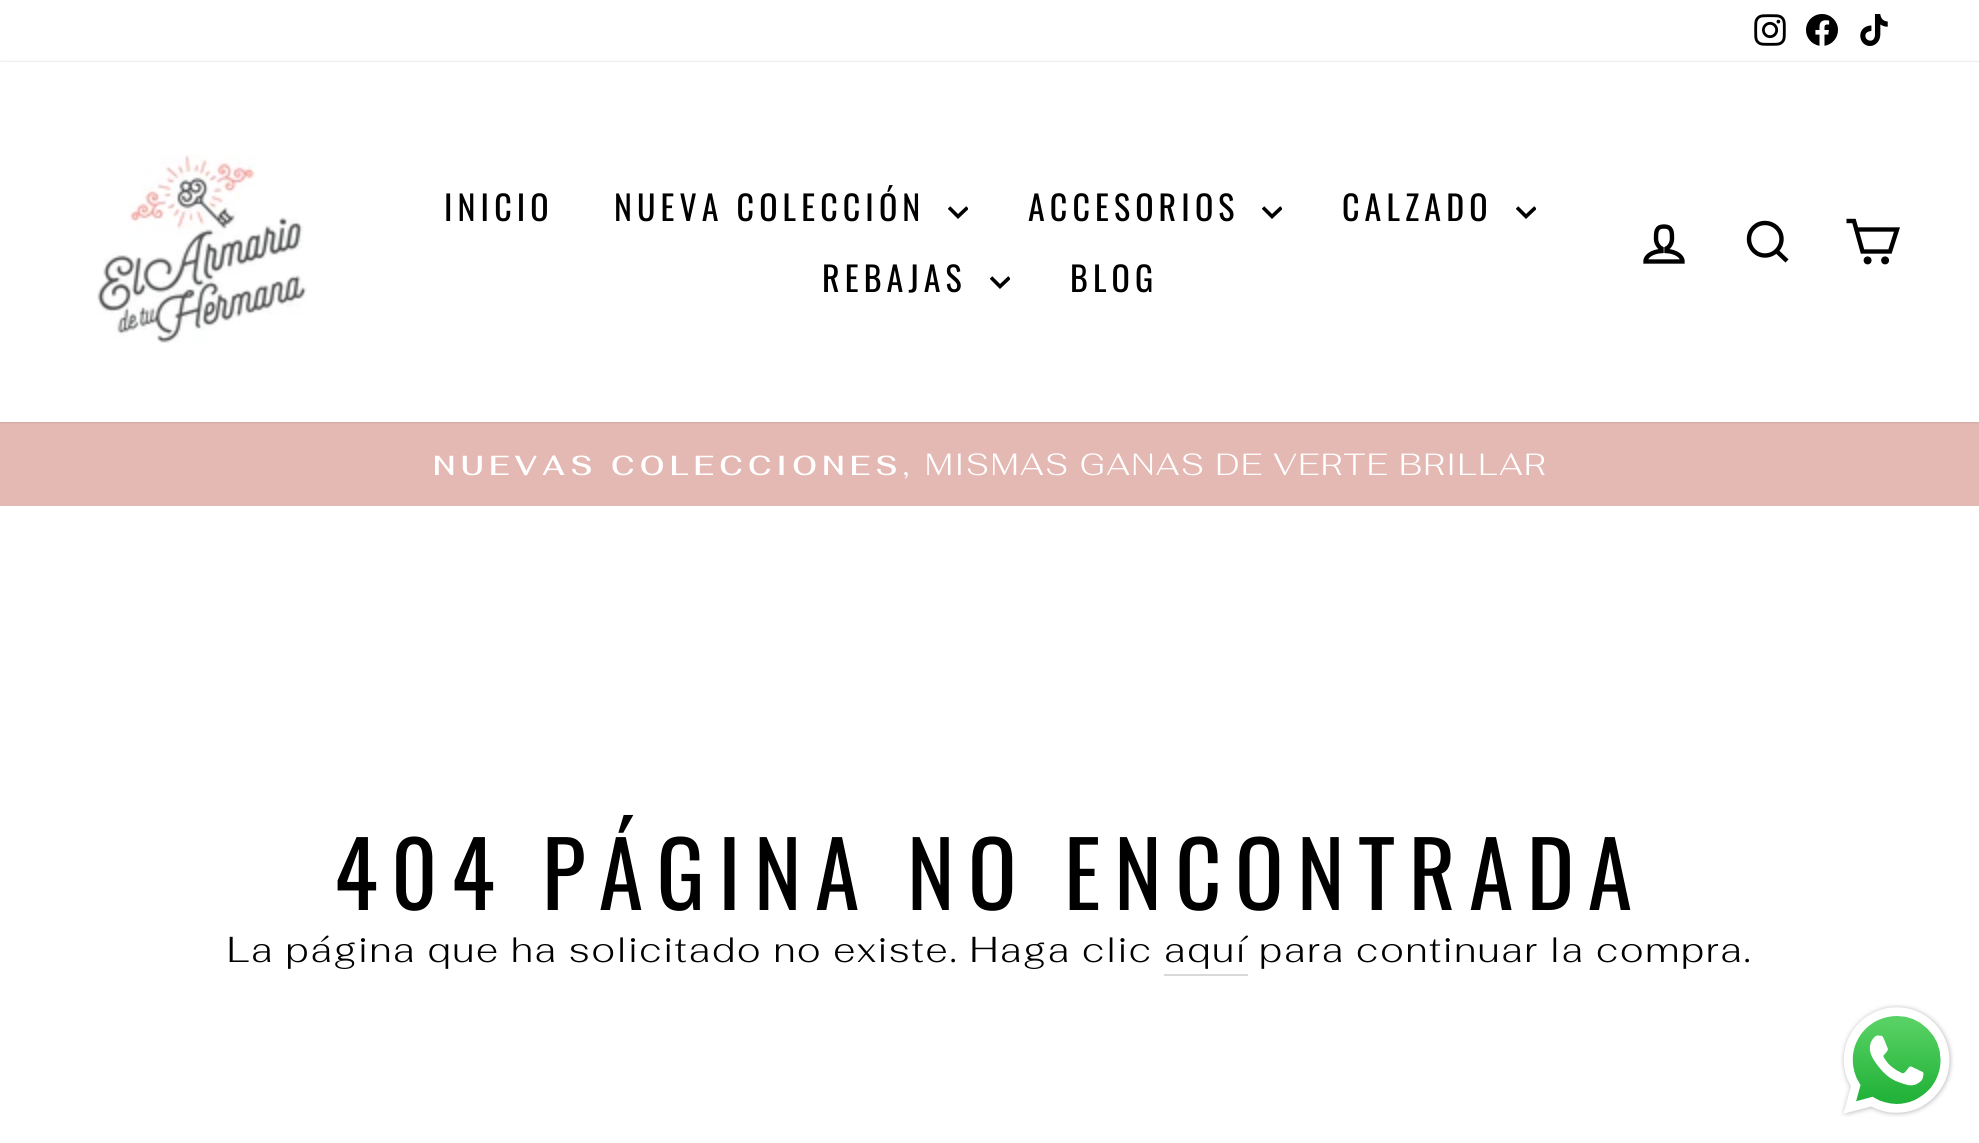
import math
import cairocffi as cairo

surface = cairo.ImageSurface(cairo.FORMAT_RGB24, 1979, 1143)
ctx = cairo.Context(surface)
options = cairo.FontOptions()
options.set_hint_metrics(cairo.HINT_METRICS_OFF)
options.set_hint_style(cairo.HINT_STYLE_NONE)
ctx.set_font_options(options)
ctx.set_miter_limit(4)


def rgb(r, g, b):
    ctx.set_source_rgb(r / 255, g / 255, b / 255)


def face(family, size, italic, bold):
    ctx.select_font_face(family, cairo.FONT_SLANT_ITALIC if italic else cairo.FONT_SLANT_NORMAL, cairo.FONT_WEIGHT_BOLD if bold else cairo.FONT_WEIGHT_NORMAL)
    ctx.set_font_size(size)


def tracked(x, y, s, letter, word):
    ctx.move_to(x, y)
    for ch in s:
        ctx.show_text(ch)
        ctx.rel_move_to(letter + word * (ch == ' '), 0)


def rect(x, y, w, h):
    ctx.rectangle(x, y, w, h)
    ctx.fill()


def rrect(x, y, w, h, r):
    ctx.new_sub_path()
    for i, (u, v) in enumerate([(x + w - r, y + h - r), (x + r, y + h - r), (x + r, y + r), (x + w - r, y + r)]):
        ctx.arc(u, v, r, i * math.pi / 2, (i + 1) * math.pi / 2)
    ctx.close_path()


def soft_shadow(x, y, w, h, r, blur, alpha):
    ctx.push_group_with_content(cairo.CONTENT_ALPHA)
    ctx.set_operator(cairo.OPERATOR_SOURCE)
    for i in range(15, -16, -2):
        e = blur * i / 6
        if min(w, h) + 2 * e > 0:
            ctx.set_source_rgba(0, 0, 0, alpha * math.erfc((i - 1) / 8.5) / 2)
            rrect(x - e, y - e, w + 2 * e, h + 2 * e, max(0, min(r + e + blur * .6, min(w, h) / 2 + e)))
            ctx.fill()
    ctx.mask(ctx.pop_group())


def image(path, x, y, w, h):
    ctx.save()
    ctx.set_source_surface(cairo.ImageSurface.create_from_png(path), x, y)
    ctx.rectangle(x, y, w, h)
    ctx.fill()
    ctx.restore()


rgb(255, 255, 255)
ctx.paint()
image('image0.png', 1754, 14, 32, 32)
image('image1.png', 1806, 14, 32, 32)
image('image2.png', 1860, 14, 28, 32)
rgb(228, 184, 179)
rect(0, 422, 1979, 84)
ctx.save()
ctx.set_fill_rule(cairo.FILL_RULE_EVEN_ODD)
ctx.new_path()
ctx.move_to(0, 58)
ctx.line_to(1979, 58)
ctx.line_to(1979, 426)
ctx.line_to(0, 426)
ctx.close_path()
ctx.move_to(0, 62)
ctx.line_to(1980, 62)
ctx.line_to(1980, 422)
ctx.line_to(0, 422)
ctx.close_path()
ctx.clip()
rgb(0, 0, 0)
soft_shadow(0, 62, 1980, 360, 0, 1, 0.2)
ctx.restore()
image('image3.png', 97, 154, 210, 189)
face('Oswald', 34, 0, 0)
rgb(0, 0, 0)
tracked(444, 221, 'INICIO', 5.1, 0)
tracked(614, 221, 'NUEVA COLECCIÓN', 5.1, 0)
ctx.save()
ctx.rectangle(948, 202, 20, 20)
ctx.clip()
ctx.new_path()
ctx.move_to(949, 207.5)
ctx.line_to(958, 216.5)
ctx.line_to(967.5, 207.5)
ctx.set_line_width(3.6)
ctx.stroke()
ctx.restore()
tracked(1028, 221, 'ACCESORIOS', 5.1, 0)
ctx.save()
ctx.rectangle(1262, 202, 20, 20)
ctx.clip()
ctx.new_path()
ctx.move_to(1263, 207.5)
ctx.line_to(1272, 216.5)
ctx.line_to(1281.5, 207.5)
ctx.set_line_width(3.6)
ctx.stroke()
ctx.restore()
tracked(1342, 221, 'CALZADO', 5.1, 0)
ctx.save()
ctx.rectangle(1516, 202, 20, 20)
ctx.clip()
ctx.new_path()
ctx.move_to(1517, 207.5)
ctx.line_to(1526, 216.5)
ctx.line_to(1535.5, 207.5)
ctx.set_line_width(3.6)
ctx.stroke()
ctx.restore()
tracked(822, 292, 'REBAJAS', 5.1, 0)
ctx.save()
ctx.rectangle(990, 272, 20, 20)
ctx.clip()
ctx.new_path()
ctx.move_to(991, 277.5)
ctx.line_to(1000, 286.5)
ctx.line_to(1009.5, 277.5)
ctx.set_line_width(3.6)
ctx.stroke()
ctx.restore()
tracked(1070, 292, 'BLOG', 5.1, 0)
ctx.new_path()
ctx.move_to(1666.5, 251)
ctx.line_to(1666.5, 248.5)
ctx.curve_to(1669.5, 247, 1672, 243, 1672, 238.5)
ctx.curve_to(1672, 232, 1672, 226.5, 1664, 226.5)
ctx.curve_to(1656, 226.5, 1656, 232, 1656, 238.5)
ctx.curve_to(1656, 243, 1658.5, 247, 1661.5, 248.5)
ctx.line_to(1661.5, 251)
ctx.curve_to(1652.5, 251.5, 1645.5, 256, 1645.5, 261.5)
ctx.line_to(1682.5, 261.5)
ctx.curve_to(1682.5, 256, 1675.5, 251.5, 1666.5, 251)
ctx.close_path()
ctx.set_line_width(4.4)
ctx.stroke()
ctx.new_path()
ctx.move_to(1781.5, 239)
ctx.curve_to(1781.5, 248, 1774, 255.5, 1765, 255.5)
ctx.curve_to(1756, 255.5, 1749, 248, 1749, 239)
ctx.curve_to(1749, 230, 1756, 223, 1765, 223)
ctx.curve_to(1774, 223, 1781.5, 230, 1781.5, 239)
ctx.close_path()
ctx.move_to(1787, 261)
ctx.line_to(1776.5, 251)
ctx.stroke()
ctx.new_path()
ctx.move_to(1856, 229.5)
ctx.line_to(1897, 229.5)
ctx.line_to(1890, 251.5)
ctx.line_to(1862.5, 251.5)
ctx.line_to(1854, 221)
ctx.line_to(1846.5, 221)
ctx.stroke()
ctx.arc(1867.6, 260.4, 1.8, 0, 2 * math.pi)
ctx.fill_preserve()
ctx.stroke()
ctx.arc(1885.1, 260.4, 1.8, 0, 2 * math.pi)
ctx.fill_preserve()
ctx.stroke()
face('Fahkwang SemiBold', 27.5, 0, 0)
rgb(255, 255, 255)
tracked(433, 475, 'NUEVAS COLECCIONES,', 5.5, 0)
face('Fahkwang Light', 30.6, 0, 0)
tracked(925, 475, 'MISMAS GANAS DE VERTE BRILLAR', 1.8, 0)
face('Oswald', 90, 0, 0)
rgb(0, 0, 0)
tracked(334, 910, '404 PÁGINA NO ENCONTRADA', 13.5, 0)
face('Fahkwang Light', 36, 0, 0)
tracked(227, 962, 'La página que ha solicitado no existe. Haga clic aquí', 1.8, 0)
tracked(1259, 962, 'para continuar la compra.', 1.8, 0)
rgb(217, 217, 217)
rect(1164, 974, 84, 2)
image('image4.png', 1840, 1004, 114, 113)
surface.write_to_png('render.png')
